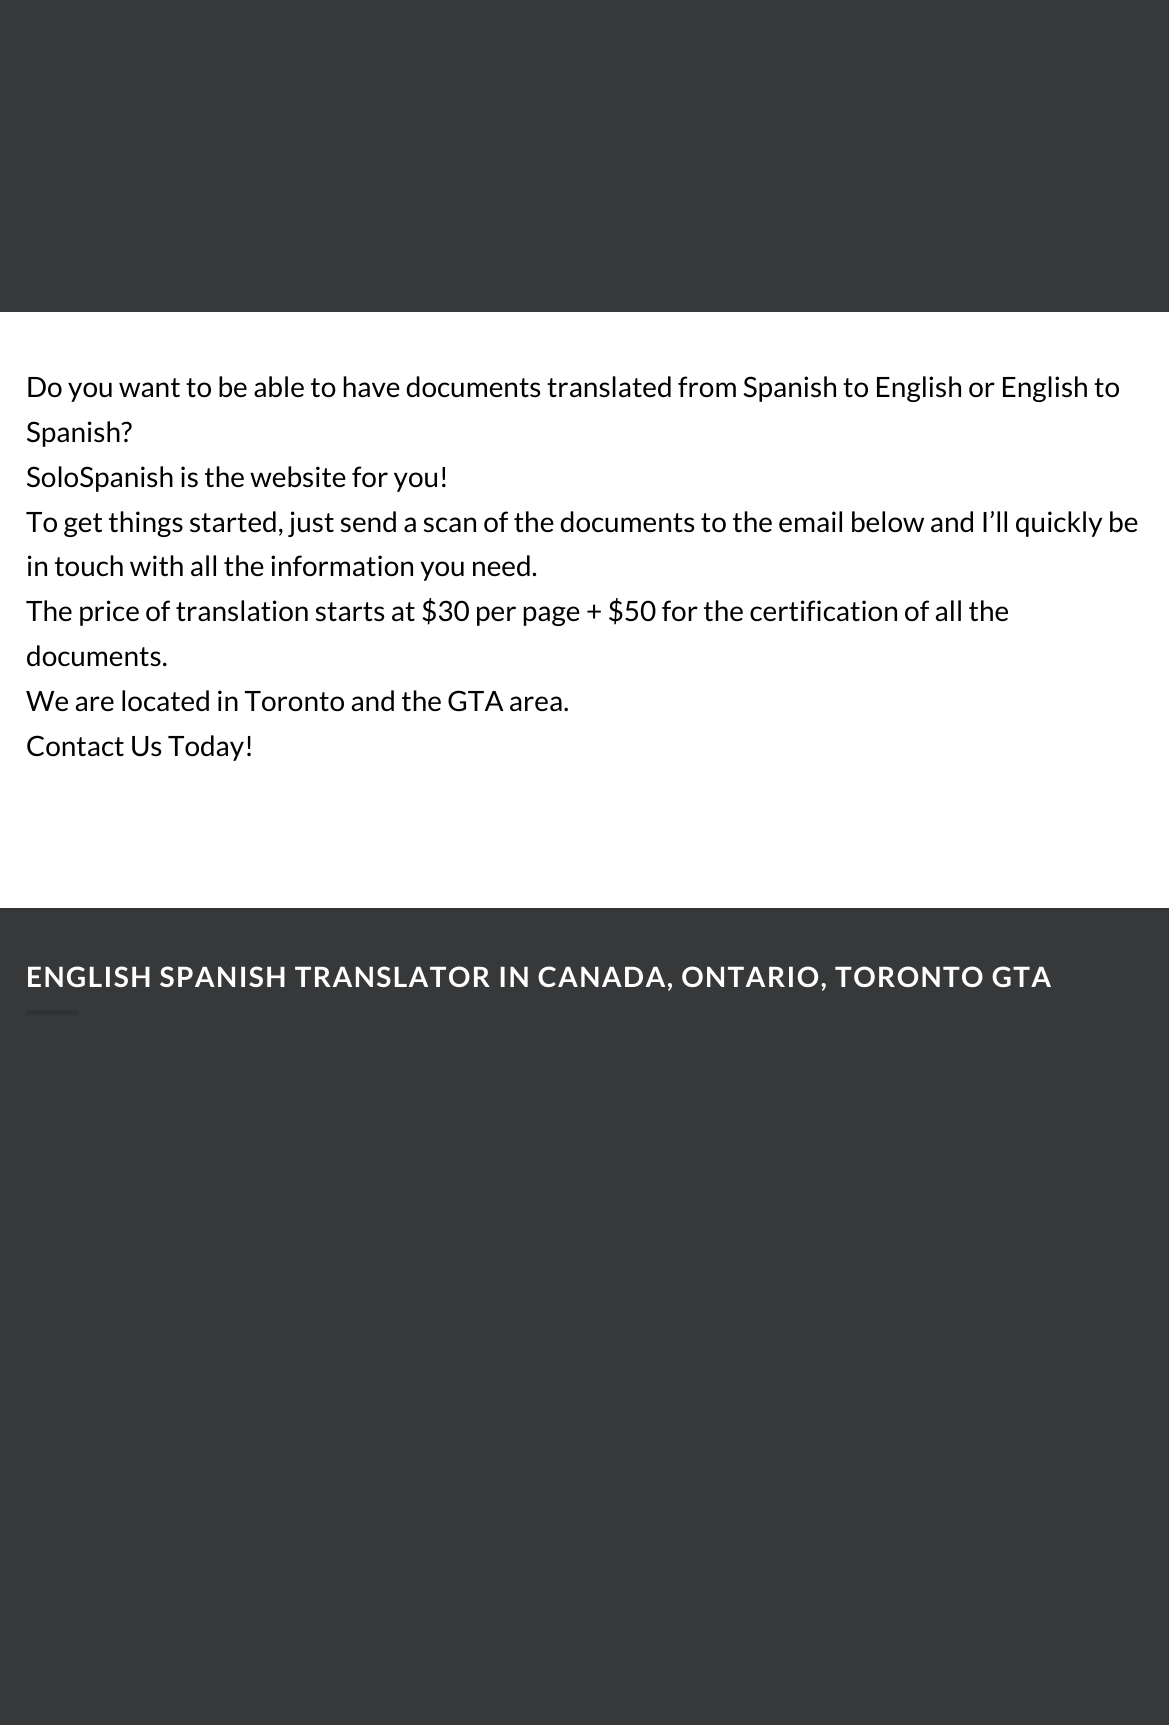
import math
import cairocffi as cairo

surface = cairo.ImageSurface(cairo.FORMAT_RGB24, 1169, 1725)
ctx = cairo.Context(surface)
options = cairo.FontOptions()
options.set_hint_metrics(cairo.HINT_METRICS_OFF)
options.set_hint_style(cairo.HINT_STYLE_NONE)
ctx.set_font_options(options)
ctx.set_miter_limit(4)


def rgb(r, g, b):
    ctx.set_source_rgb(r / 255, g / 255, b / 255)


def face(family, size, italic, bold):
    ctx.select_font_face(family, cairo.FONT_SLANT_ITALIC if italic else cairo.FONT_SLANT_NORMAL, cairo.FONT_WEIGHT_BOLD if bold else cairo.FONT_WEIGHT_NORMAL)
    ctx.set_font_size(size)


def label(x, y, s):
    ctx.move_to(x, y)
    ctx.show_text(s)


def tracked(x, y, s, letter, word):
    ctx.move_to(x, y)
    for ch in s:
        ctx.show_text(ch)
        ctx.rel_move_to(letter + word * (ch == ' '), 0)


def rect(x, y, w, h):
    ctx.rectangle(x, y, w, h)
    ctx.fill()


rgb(255, 255, 255)
ctx.paint()
rgb(54, 56, 57)
rect(0, 0, 1169, 312)
face('Lato', 28, 0, 0)
rgb(0, 0, 0)
label(26, 397, 'Do you want to be able to have documents translated from Spanish to English or English to')
label(26, 442, 'Spanish?')
label(26, 487, 'SoloSpanish is the website for you!')
label(26, 532, 'To get things started, just send a scan of the documents to the email below and I’ll quickly be')
label(26, 576, 'in touch with all the information you need.')
label(26, 621, 'The price of translation starts at $30 per page + $50 for the certification of all the')
label(26, 666, 'documents.')
label(26, 711, 'We are located in Toronto and the GTA area.')
label(26, 756, 'Contact Us Today!')
rgb(54, 56, 57)
rect(0, 910, 1169, 815)
rgb(51, 53, 54)
rect(0, 908, 1169, 2)
face('Lato', 28, 0, 1)
rgb(255, 255, 255)
tracked(26, 987, 'ENGLISH SPANISH TRANSLATOR IN CANADA, ONTARIO, TORONTO GTA', 1.4, 0)
rgb(49, 50, 51)
rect(26, 1010, 53, 5)
surface.write_to_png('render.png')
